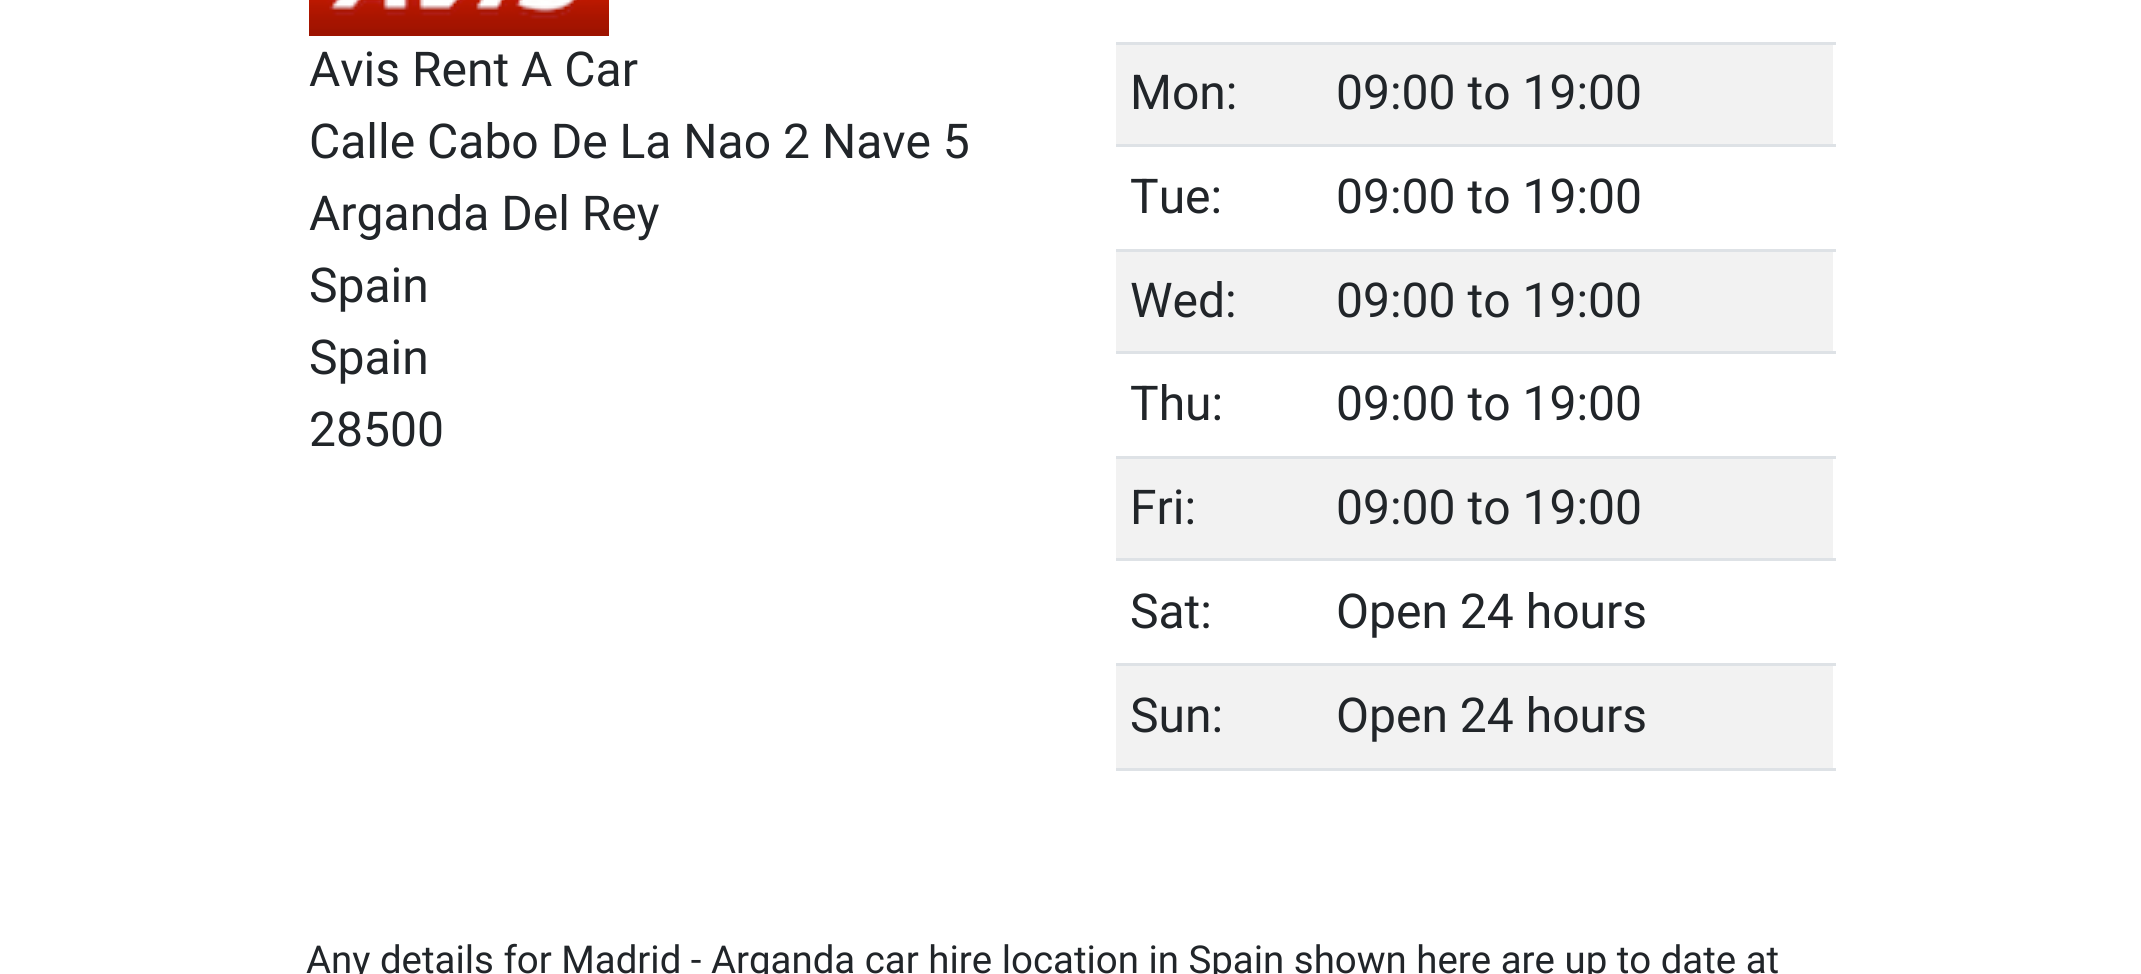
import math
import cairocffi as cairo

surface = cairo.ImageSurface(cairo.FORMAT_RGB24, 2141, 974)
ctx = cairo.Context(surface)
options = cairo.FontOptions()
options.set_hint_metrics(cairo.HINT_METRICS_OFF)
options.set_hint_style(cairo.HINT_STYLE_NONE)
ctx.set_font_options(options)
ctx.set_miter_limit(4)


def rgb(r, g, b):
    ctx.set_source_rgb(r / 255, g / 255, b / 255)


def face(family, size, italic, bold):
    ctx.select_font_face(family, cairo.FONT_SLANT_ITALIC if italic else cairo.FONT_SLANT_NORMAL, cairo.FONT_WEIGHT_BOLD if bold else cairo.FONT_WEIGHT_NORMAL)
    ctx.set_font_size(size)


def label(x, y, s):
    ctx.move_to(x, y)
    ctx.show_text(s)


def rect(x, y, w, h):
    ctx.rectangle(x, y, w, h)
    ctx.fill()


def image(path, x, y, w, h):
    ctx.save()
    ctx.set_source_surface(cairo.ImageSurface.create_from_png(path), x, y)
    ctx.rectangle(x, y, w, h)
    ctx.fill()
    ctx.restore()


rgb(255, 255, 255)
ctx.paint()
image('image0.png', 309, 0, 300, 36)
face('Roboto', 48, 0, 0)
rgb(33, 37, 41)
label(309, 86, 'Avis Rent A Car')
label(309, 158, 'Calle Cabo De La Nao 2 Nave 5')
label(309, 230, 'Arganda Del Rey')
label(309, 302, 'Spain')
label(309, 374, 'Spain')
label(309, 446, '28500')
rgb(242, 242, 242)
rect(1116, 45, 717, 99)
rgb(33, 37, 41)
label(1130, 109, 'Mon:')
rgb(222, 226, 230)
rect(1116, 42, 720, 3)
rgb(33, 37, 41)
label(1336, 109, '09:00 to 19:00')
label(1130, 213, 'Tue:')
rgb(222, 226, 230)
rect(1116, 144, 720, 3)
rgb(33, 37, 41)
label(1336, 213, '09:00 to 19:00')
rgb(242, 242, 242)
rect(1116, 252, 717, 99)
rgb(33, 37, 41)
label(1130, 317, 'Wed:')
rgb(222, 226, 230)
rect(1116, 249, 720, 3)
rgb(33, 37, 41)
label(1336, 317, '09:00 to 19:00')
label(1130, 420, 'Thu:')
rgb(222, 226, 230)
rect(1116, 351, 720, 3)
rgb(33, 37, 41)
label(1336, 420, '09:00 to 19:00')
rgb(242, 242, 242)
rect(1116, 459, 717, 99)
rgb(33, 37, 41)
label(1130, 524, 'Fri:')
rgb(222, 226, 230)
rect(1116, 456, 720, 3)
rgb(33, 37, 41)
label(1336, 524, '09:00 to 19:00')
label(1130, 628, 'Sat:')
rgb(222, 226, 230)
rect(1116, 558, 720, 3)
rgb(33, 37, 41)
label(1336, 628, 'Open 24 hours')
rgb(242, 242, 242)
rect(1116, 666, 717, 102)
rgb(33, 37, 41)
label(1130, 732, 'Sun:')
rgb(222, 226, 230)
rect(1116, 663, 720, 3)
rgb(33, 37, 41)
label(1336, 732, 'Open 24 hours')
rgb(222, 226, 230)
rect(1116, 768, 720, 3)
face('Roboto', 38.4, 0, 0)
rgb(33, 37, 41)
label(306, 973, 'Any details for Madrid - Arganda car hire location in Spain shown here are up to date at')
surface.write_to_png('render.png')
